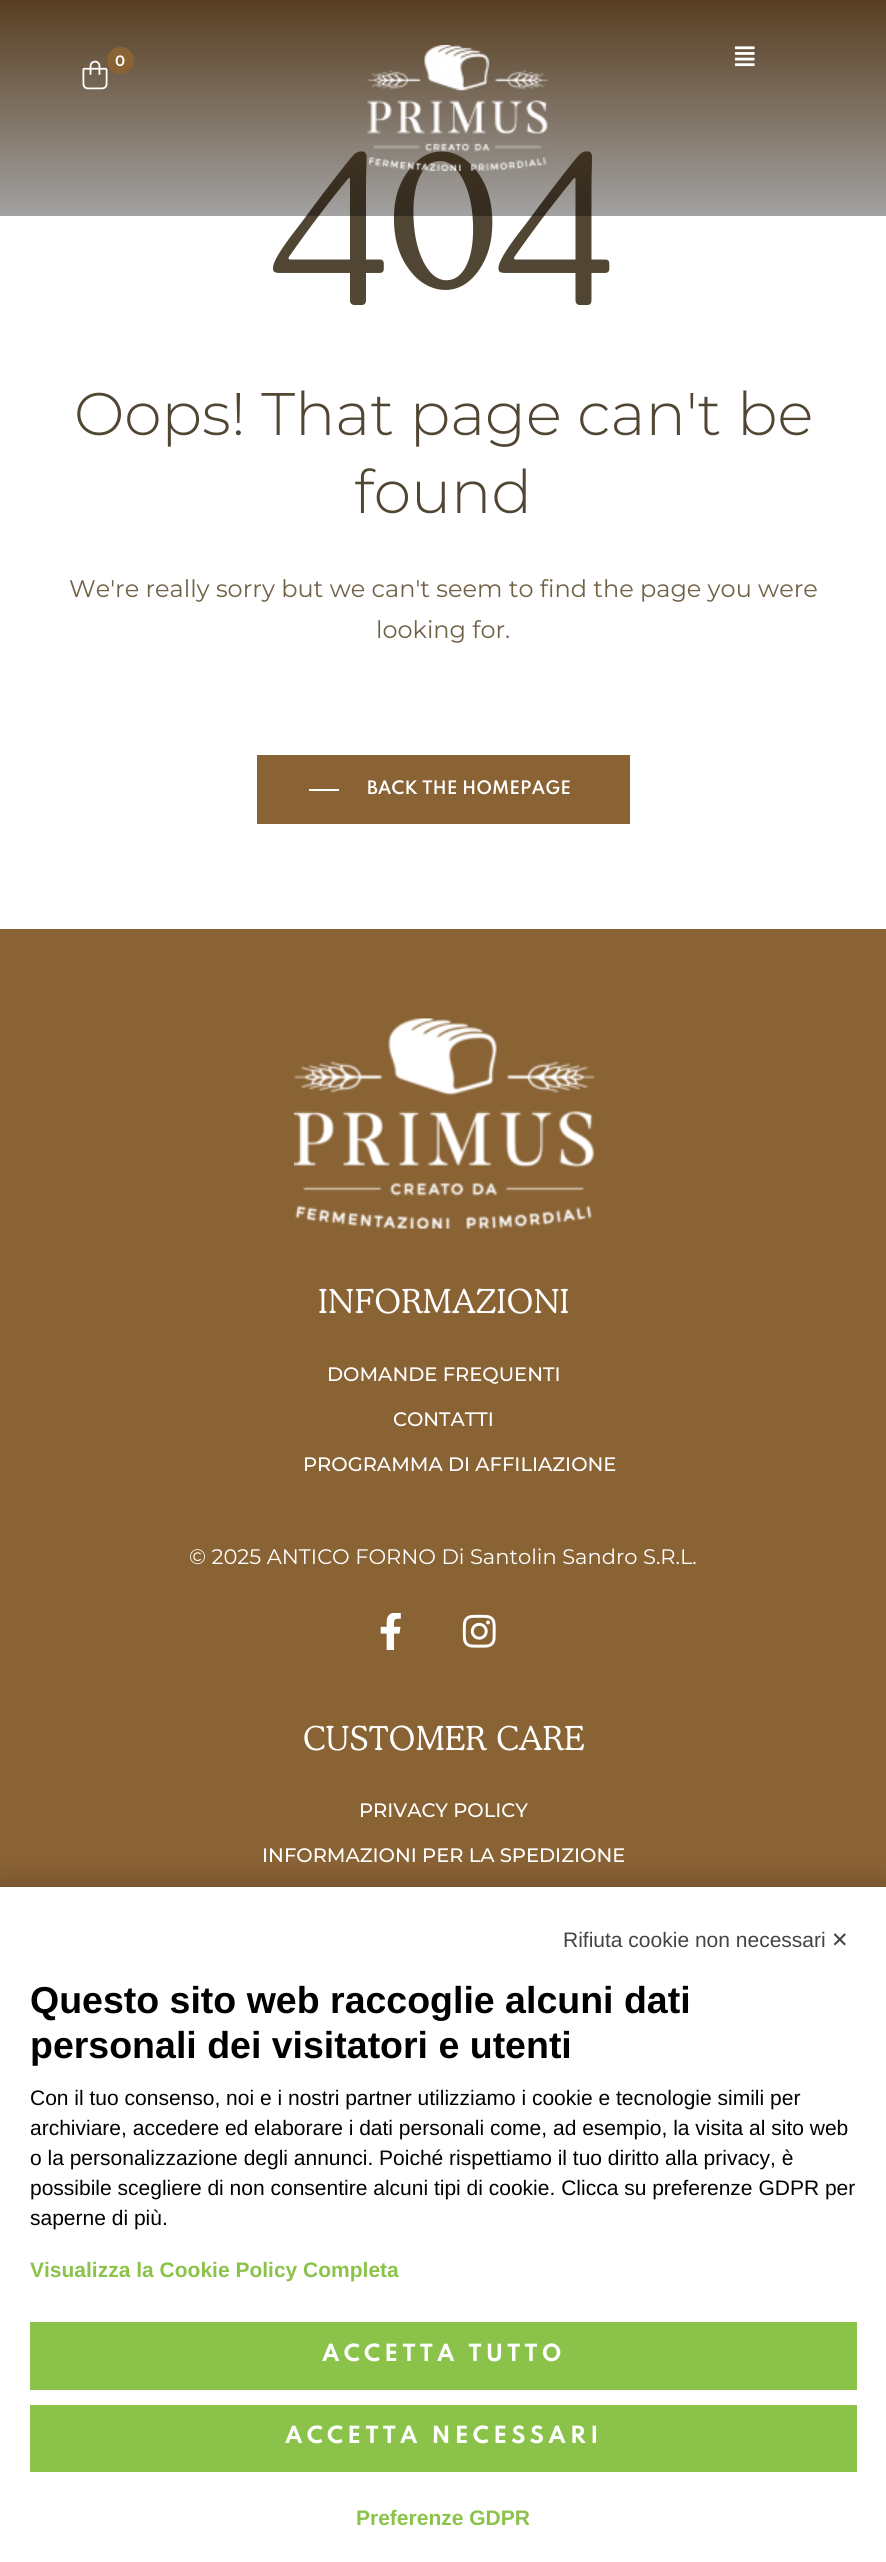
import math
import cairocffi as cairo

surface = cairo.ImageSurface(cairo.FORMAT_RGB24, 886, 2562)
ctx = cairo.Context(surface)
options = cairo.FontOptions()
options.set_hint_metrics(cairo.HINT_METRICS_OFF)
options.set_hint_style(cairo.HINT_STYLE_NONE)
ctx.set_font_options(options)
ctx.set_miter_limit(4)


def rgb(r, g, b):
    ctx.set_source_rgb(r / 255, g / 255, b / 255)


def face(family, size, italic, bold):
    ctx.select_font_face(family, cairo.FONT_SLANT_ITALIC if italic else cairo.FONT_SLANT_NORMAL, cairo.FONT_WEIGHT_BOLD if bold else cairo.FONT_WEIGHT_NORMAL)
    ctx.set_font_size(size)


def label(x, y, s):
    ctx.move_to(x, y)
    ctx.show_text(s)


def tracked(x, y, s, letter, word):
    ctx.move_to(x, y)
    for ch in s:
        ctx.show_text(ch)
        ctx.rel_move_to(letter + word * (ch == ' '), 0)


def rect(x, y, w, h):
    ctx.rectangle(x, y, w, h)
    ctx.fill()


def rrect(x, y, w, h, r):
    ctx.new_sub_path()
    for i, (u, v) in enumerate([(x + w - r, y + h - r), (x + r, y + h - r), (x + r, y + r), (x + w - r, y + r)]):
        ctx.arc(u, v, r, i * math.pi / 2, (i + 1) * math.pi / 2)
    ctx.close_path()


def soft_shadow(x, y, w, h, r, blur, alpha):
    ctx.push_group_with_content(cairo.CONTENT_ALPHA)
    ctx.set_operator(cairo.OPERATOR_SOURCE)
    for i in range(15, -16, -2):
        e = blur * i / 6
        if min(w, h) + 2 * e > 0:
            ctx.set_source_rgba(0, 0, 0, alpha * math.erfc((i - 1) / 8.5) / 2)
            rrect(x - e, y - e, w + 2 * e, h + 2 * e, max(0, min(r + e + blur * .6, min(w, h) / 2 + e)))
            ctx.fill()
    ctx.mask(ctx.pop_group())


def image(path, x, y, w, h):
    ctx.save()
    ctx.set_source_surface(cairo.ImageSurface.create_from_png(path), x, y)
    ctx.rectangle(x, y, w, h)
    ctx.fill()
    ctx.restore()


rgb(255, 255, 255)
ctx.paint()
face('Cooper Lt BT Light', 210, 0, 0)
rgb(81, 70, 51)
label(274, 287, '404')
gradient = cairo.LinearGradient(443, 0, 443, 216)
gradient.add_color_stop_rgba(0, 0.541, 0.388, 0.208, 1)
gradient.add_color_stop_rgba(1, 0.541, 0.388, 0.208, 0)
ctx.set_source(gradient)
rect(0, 0, 886, 211)
ctx.set_source_rgba(0.02, 0, 0, 0.37)
rect(0, 0, 886, 216)
image('image0.png', 82, 60, 26, 30)
rgb(138, 99, 53)
ctx.arc(120.5, 60.5, 13.5, 0, 2 * math.pi)
ctx.fill()
face('Montserrat SemiBold', 15, 0, 0)
rgb(255, 255, 255)
label(115, 66, '0')
image('image1.png', 367, 45, 181, 126)
image('image2.png', 734, 46, 21, 21)
face('Montserrat Light', 60, 0, 0)
rgb(81, 70, 51)
label(74, 435, 'Oops! That page can\'t be')
label(354, 513, 'found')
face('Montserrat', 24, 0, 0)
rgb(113, 97, 71)
label(69, 597, 'We\'re really sorry but we can\'t seem to find the page you were')
label(376, 638, 'looking for.')
rgb(138, 99, 53)
rect(257, 755, 373, 69)
rgb(255, 255, 255)
rect(309, 789, 30, 2)
face('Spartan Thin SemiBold', 16.5, 0, 0)
label(367, 794, 'BACK THE HOMEPAGE')
rgb(138, 99, 53)
rect(0, 929, 886, 958)
image('image3.png', 294, 1018, 300, 211)
face('Cooper Lt BT Light', 33, 0, 0)
rgb(255, 255, 255)
tracked(318, 1313, 'INFORMAZIONI', 0.5, 0)
face('Montserrat Medium', 19.5, 0, 0)
label(327, 1381, 'DOMANDE FREQUENTI')
label(393, 1426, 'CONTATTI')
label(303, 1471, 'PROGRAMMA DI AFFILIAZIONE')
face('Montserrat', 21, 0, 0)
label(189, 1564, '© 2025 ANTICO FORNO Di Santolin Sandro S.R.L.')
image('image4.png', 380, 1613, 21, 37)
image('image5.png', 462, 1614, 34, 34)
face('Cooper Lt BT Light', 33, 0, 0)
tracked(303, 1750, 'CUSTOMER CARE', 0.5, 0)
face('Montserrat Medium', 19.5, 0, 0)
label(359, 1817, 'PRIVACY POLICY')
label(262, 1862, 'INFORMAZIONI PER LA SPEDIZIONE')
rgb(0, 0, 0)
soft_shadow(0, 1887, 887, 675, 0, 15, 0.27)
rgb(255, 255, 255)
rect(0, 1887, 886, 675)
face('Liberation Sans', 21, 0, 0)
rgb(68, 68, 68)
label(563, 1947, 'Rifiuta cookie non necessari')
face('DejaVu Sans', 21, 0, 0)
label(831, 1947, '✕')
face('Liberation Sans', 37.5, 0, 1)
rgb(0, 0, 0)
label(30, 2013, 'Questo sito web raccoglie alcuni dati')
label(30, 2058, 'personali dei visitatori e utenti')
face('Liberation Sans', 21, 0, 0)
label(30, 2105, 'Con il tuo consenso, noi e i nostri partner utilizziamo i cookie e tecnologie simili per')
label(30, 2135, 'archiviare, accedere ed elaborare i dati personali come, ad esempio, la visita al sito web')
label(30, 2165, 'o la personalizzazione degli annunci. Poiché rispettiamo il tuo diritto alla privacy, è')
label(30, 2195, 'possibile scegliere di non consentire alcuni tipi di cookie. Clicca su preferenze GDPR per')
label(30, 2225, 'saperne di più.')
face('Liberation Sans', 21, 0, 1)
rgb(139, 195, 74)
label(30, 2277, 'Visualizza la Cookie Policy Completa')
rect(30, 2322, 827, 68)
face('Spartan Thin', 21, 0, 1)
rgb(255, 255, 255)
tracked(322, 2361, 'ACCETTA TUTTO', 4.25, 0)
rgb(139, 195, 74)
rect(30, 2405, 827, 67)
rgb(255, 255, 255)
tracked(285, 2443, 'ACCETTA NECESSARI', 4.25, 0)
face('Liberation Sans', 21, 0, 1)
rgb(139, 195, 74)
label(356, 2525, 'Preferenze GDPR')
surface.write_to_png('render.png')
